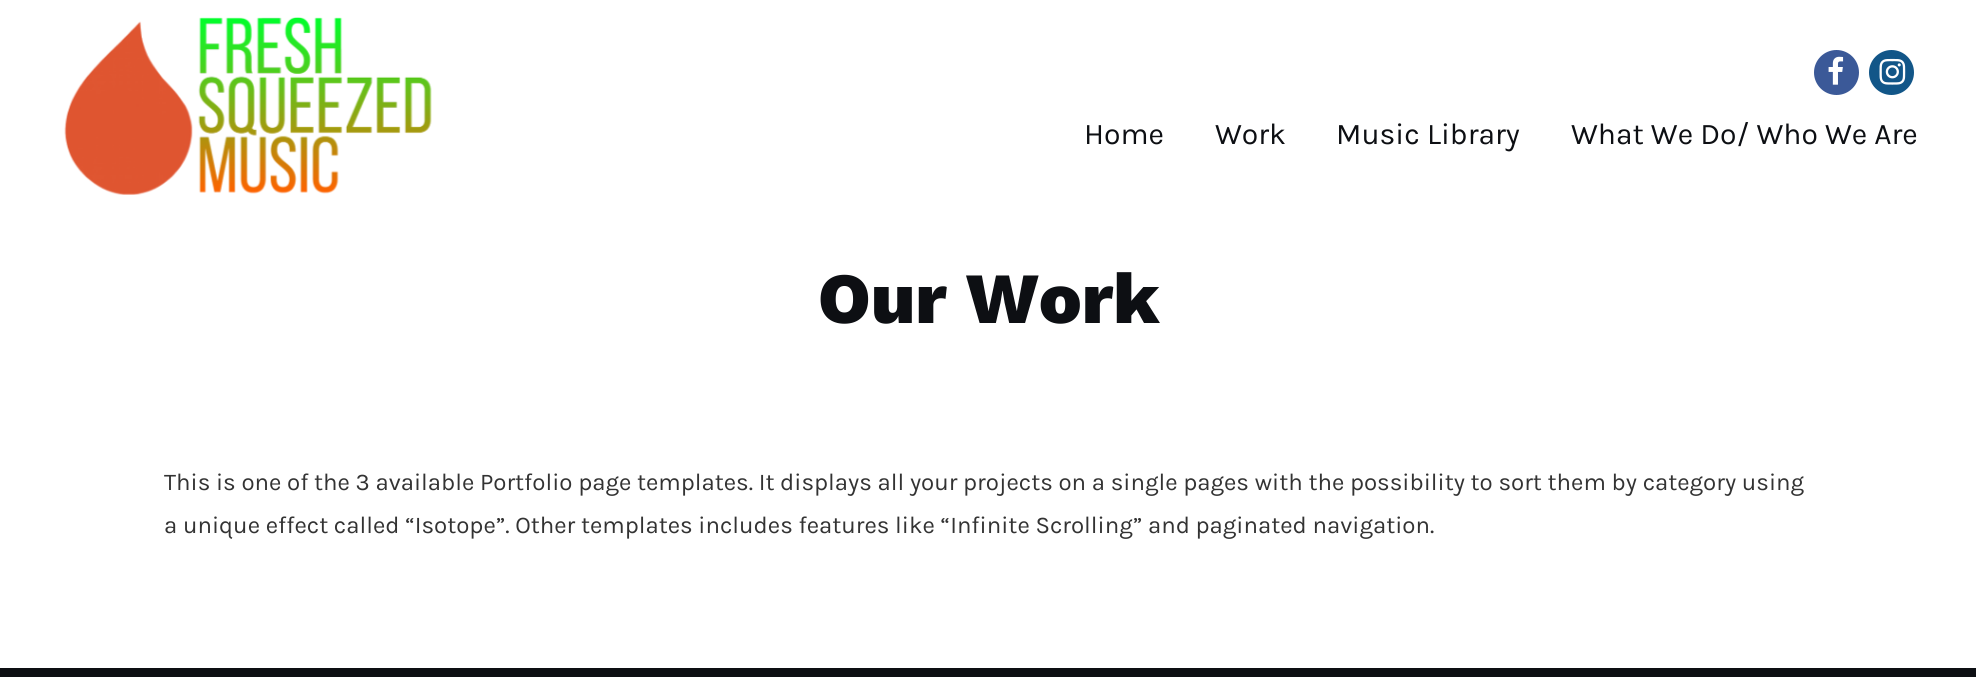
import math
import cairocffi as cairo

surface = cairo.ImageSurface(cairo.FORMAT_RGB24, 1976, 677)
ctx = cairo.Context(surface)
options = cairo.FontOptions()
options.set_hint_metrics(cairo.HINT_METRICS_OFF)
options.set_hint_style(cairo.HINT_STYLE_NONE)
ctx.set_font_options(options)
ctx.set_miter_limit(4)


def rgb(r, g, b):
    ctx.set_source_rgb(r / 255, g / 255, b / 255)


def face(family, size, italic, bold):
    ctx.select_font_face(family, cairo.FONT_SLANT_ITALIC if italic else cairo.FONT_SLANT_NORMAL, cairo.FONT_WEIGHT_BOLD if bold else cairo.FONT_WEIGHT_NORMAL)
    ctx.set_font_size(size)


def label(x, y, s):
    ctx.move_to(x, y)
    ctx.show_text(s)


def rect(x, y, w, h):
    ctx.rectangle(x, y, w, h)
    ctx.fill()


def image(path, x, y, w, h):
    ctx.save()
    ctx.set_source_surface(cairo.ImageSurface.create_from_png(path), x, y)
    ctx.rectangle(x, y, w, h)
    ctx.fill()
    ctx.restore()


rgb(255, 255, 255)
ctx.paint()
image('image0.png', 64, 17, 368, 178)
rgb(59, 89, 152)
ctx.arc(1836.5, 72.5, 22.5, 0, 2 * math.pi)
ctx.fill()
image('image1.png', 1828, 56, 16, 29)
rgb(18, 86, 136)
ctx.arc(1891.5, 72.5, 22.5, 0, 2 * math.pi)
ctx.fill()
image('image2.png', 1879, 58, 27, 27)
face('Karla', 30, 0, 0)
rgb(13, 15, 19)
label(1084, 144, 'Home')
label(1215, 144, 'Work')
label(1336, 144, 'Music Library')
label(1571, 144, 'What We Do/ Who We Are')
face('Work Sans ExtraBold', 72, 0, 0)
label(818, 323, 'Our Work')
face('Karla', 24, 0, 0)
rgb(51, 51, 51)
label(164, 490, 'This is one of the 3 available Portfolio page templates. It displays all your projects on a single pages with the possibility to sort them by category using')
label(164, 533, 'a unique effect called “Isotope”. Other templates includes features like “Infinite Scrolling” and paginated navigation.')
rgb(13, 15, 19)
rect(0, 668, 1976, 9)
surface.write_to_png('render.png')
